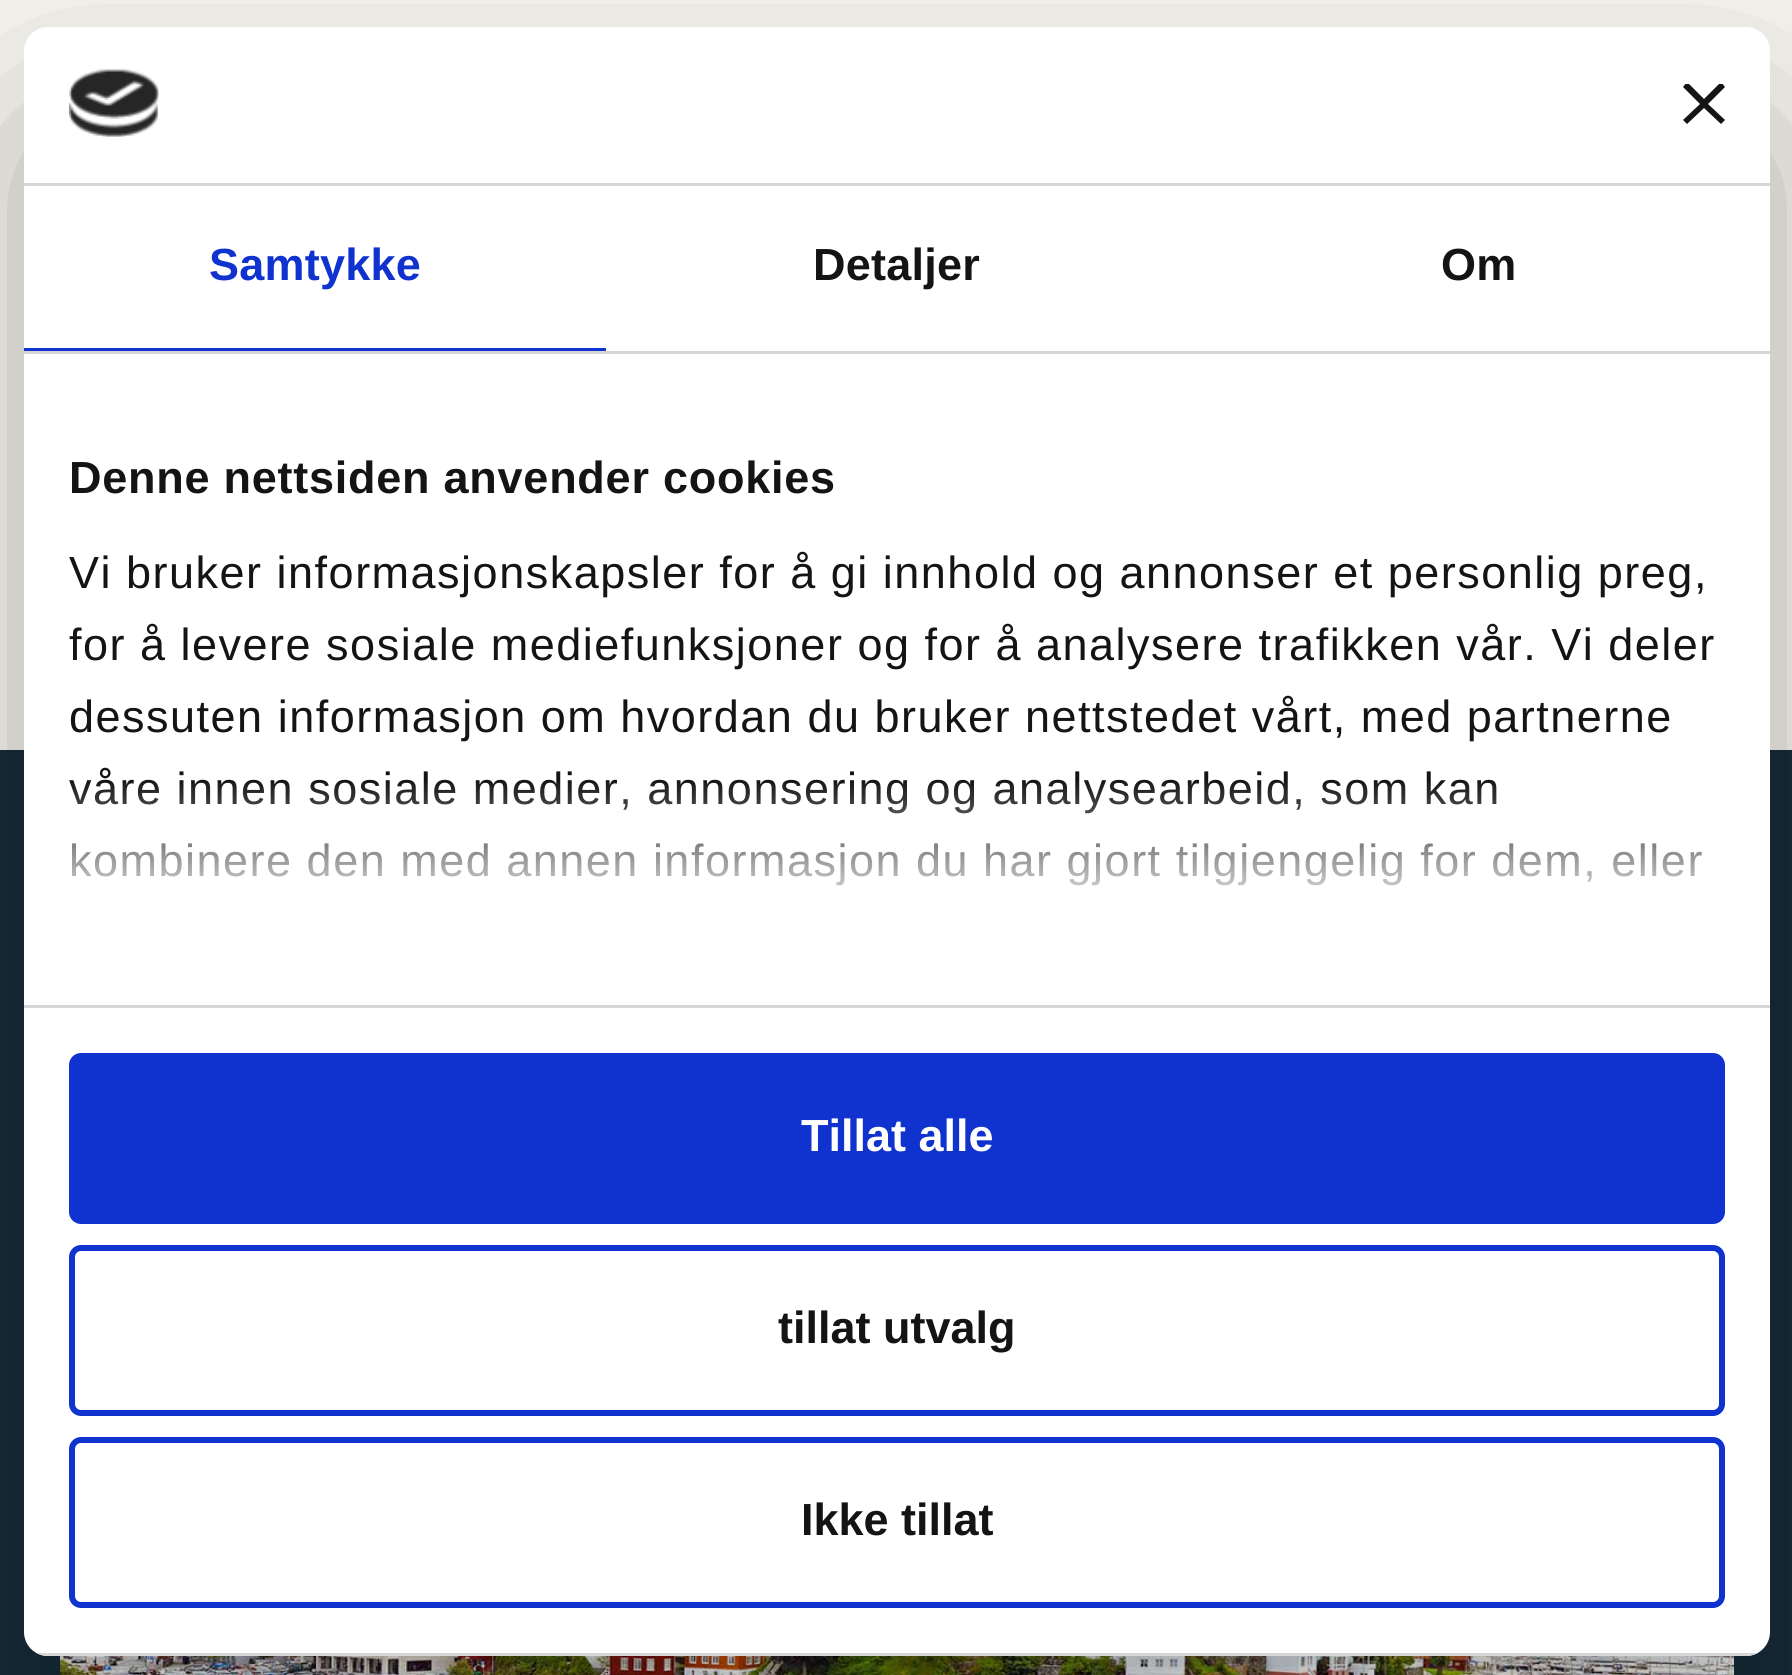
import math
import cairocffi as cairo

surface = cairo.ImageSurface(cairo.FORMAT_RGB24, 1792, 1675)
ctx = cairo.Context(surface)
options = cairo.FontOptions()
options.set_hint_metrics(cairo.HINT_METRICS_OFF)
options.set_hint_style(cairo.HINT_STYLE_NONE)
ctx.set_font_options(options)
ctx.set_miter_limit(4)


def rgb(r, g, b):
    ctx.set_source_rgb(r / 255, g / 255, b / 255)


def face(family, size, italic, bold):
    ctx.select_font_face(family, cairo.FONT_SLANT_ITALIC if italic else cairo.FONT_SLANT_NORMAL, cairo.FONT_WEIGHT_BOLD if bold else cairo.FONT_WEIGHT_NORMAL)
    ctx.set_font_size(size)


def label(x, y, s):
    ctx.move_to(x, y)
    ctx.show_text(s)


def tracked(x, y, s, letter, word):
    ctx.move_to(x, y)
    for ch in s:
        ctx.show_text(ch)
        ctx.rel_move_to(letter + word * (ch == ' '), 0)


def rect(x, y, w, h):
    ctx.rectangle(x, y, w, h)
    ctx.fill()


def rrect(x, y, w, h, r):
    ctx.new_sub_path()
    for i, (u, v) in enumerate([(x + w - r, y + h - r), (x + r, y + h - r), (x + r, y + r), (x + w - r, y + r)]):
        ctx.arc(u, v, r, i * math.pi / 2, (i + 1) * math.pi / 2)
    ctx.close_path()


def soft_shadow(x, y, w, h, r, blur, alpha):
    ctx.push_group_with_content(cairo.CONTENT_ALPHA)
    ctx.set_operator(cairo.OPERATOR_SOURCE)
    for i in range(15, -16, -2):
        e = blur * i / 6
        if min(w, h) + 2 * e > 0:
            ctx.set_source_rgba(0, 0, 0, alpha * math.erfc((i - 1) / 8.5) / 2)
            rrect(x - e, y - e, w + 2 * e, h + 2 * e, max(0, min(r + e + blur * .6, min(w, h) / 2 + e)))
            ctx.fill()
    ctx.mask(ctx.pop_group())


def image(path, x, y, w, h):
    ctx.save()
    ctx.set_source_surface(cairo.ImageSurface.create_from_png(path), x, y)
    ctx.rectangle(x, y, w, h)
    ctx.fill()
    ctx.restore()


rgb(246, 245, 239)
ctx.paint()
rgb(22, 44, 57)
rect(0, 750, 1792, 925)
image('image1.png', 60, 1656, 1674, 19)
rgb(0, 0, 0)
soft_shadow(24, 123, 1746, 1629, 24, 102, 0.3)
rgb(255, 255, 255)
rrect(24, 27, 1746, 1629, 24)
ctx.fill()
rgb(214, 214, 214)
rect(24, 183, 1746, 3)
image('image0.png', 69, 69, 90, 68)
ctx.save()
ctx.rectangle(1683, 84, 42, 42)
ctx.clip()
rgb(20, 20, 20)
ctx.new_path()
ctx.move_to(1725, 87)
ctx.line_to(1721, 82)
ctx.line_to(1704, 99)
ctx.line_to(1687, 82)
ctx.line_to(1683, 87)
ctx.line_to(1700, 104)
ctx.line_to(1683, 120)
ctx.line_to(1687, 124)
ctx.line_to(1704, 108)
ctx.line_to(1721, 124)
ctx.line_to(1725, 120)
ctx.line_to(1708, 104)
ctx.close_path()
ctx.fill()
ctx.restore()
rect(24, 351, 1746, 3)
rgb(16, 50, 207)
rect(24, 348, 582, 3)
face('Liberation Sans', 45, 0, 1)
tracked(209, 280, 'Samtykke', 0.25, 0)
rgb(20, 20, 20)
tracked(813, 280, 'Detaljer', 0.25, 0)
tracked(1441, 280, 'Om', 0.25, 0)
rgb(214, 214, 214)
rect(24, 1005, 1746, 3)
rgb(20, 20, 20)
tracked(69, 493, 'Denne nettsiden anvender cookies', 0.75, 0)
face('Liberation Sans', 45, 0, 0)
tracked(69, 588, 'Vi bruker informasjonskapsler for å gi innhold og annonser et personlig preg,', 1.5, 0)
tracked(69, 660, 'for å levere sosiale mediefunksjoner og for å analysere trafikken vår. Vi deler', 1.5, 0)
tracked(69, 732, 'dessuten informasjon om hvordan du bruker nettstedet vårt, med partnerne', 1.5, 0)
tracked(69, 804, 'våre innen sosiale medier, annonsering og analysearbeid, som kan', 1.5, 0)
tracked(69, 876, 'kombinere den med annen informasjon du har gjort tilgjengelig for dem, eller', 1.5, 0)
gradient = cairo.LinearGradient(878, 1004, 878, 779)
gradient.add_color_stop_rgba(0, 1, 1, 1, 1)
gradient.add_color_stop_rgba(0.5, 1, 1, 1, 0.8)
gradient.add_color_stop_rgba(1, 1, 1, 1, 0)
ctx.set_source(gradient)
rect(70, 782, 1632, 104)
ctx.save()
rrect(24, 27, 1746, 1629, 24)
ctx.clip()
rgb(214, 214, 214)
rect(36, 1653, 1722, 3)
ctx.restore()
rgb(16, 50, 207)
rrect(72, 1056, 1650, 165, 9)
ctx.fill_preserve()
ctx.set_line_width(6)
ctx.stroke()
face('Liberation Sans', 45, 0, 1)
rgb(255, 255, 255)
label(801, 1151, 'Tillat alle')
rrect(72, 1248, 1650, 165, 9)
rgb(16, 50, 207)
ctx.stroke()
rgb(20, 20, 20)
label(778, 1343, 'tillat utvalg')
rrect(72, 1440, 1650, 165, 9)
rgb(16, 50, 207)
ctx.stroke()
rgb(20, 20, 20)
label(801, 1535, 'Ikke tillat')
surface.write_to_png('render.png')
